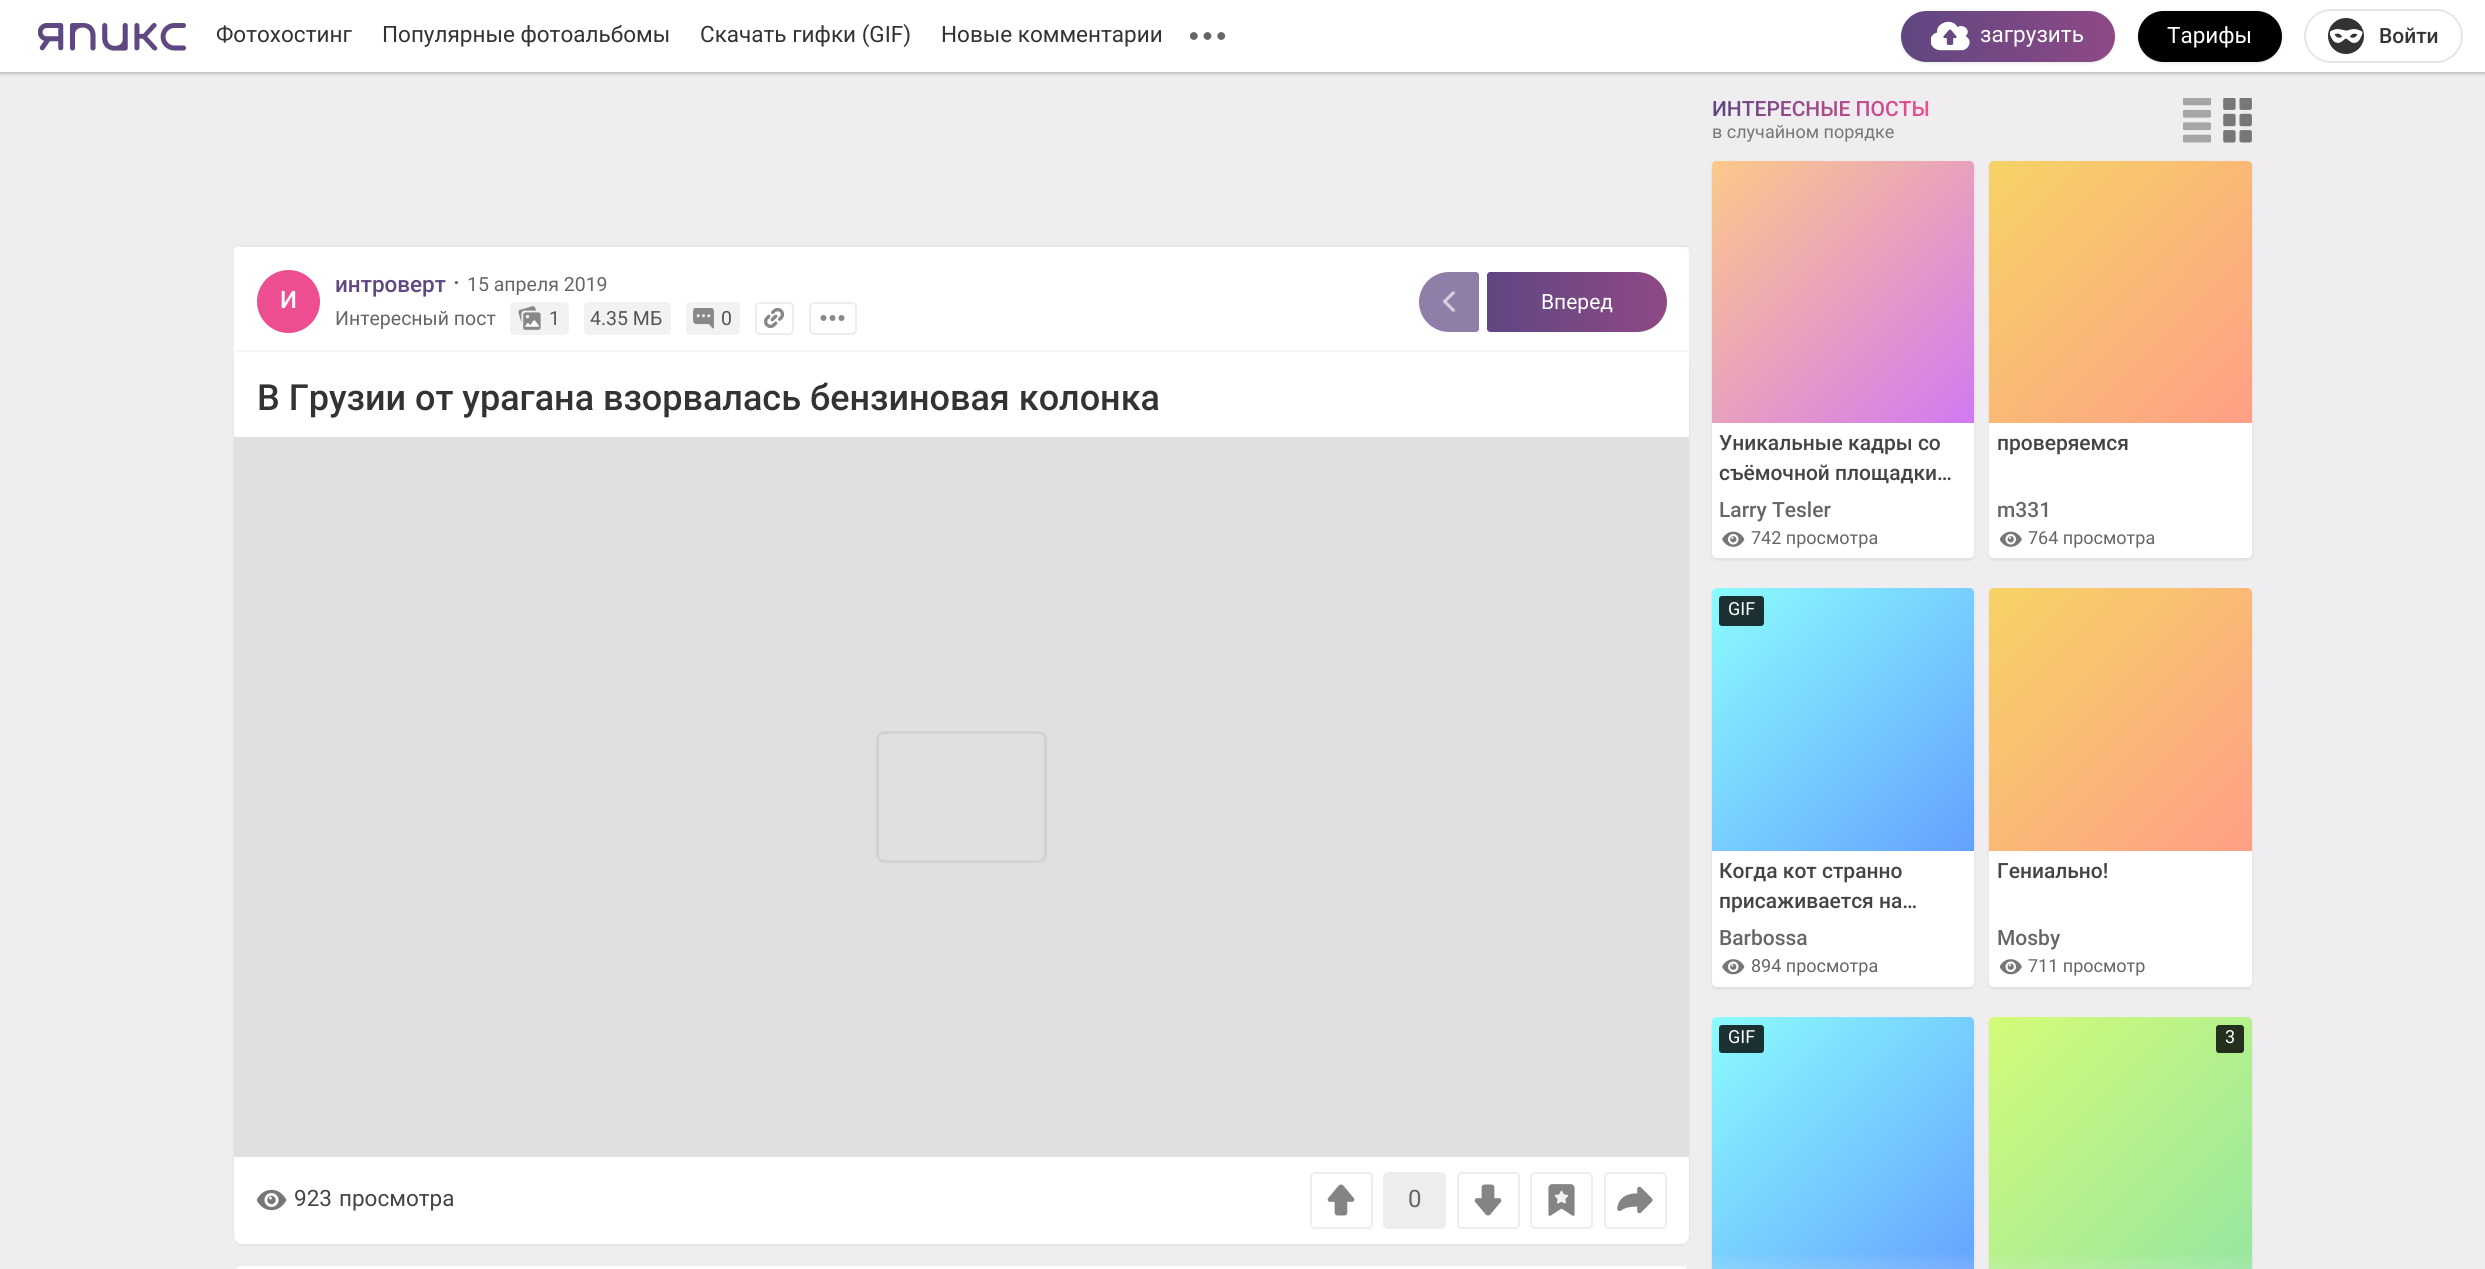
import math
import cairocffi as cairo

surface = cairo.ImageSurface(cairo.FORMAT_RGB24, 2485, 1269)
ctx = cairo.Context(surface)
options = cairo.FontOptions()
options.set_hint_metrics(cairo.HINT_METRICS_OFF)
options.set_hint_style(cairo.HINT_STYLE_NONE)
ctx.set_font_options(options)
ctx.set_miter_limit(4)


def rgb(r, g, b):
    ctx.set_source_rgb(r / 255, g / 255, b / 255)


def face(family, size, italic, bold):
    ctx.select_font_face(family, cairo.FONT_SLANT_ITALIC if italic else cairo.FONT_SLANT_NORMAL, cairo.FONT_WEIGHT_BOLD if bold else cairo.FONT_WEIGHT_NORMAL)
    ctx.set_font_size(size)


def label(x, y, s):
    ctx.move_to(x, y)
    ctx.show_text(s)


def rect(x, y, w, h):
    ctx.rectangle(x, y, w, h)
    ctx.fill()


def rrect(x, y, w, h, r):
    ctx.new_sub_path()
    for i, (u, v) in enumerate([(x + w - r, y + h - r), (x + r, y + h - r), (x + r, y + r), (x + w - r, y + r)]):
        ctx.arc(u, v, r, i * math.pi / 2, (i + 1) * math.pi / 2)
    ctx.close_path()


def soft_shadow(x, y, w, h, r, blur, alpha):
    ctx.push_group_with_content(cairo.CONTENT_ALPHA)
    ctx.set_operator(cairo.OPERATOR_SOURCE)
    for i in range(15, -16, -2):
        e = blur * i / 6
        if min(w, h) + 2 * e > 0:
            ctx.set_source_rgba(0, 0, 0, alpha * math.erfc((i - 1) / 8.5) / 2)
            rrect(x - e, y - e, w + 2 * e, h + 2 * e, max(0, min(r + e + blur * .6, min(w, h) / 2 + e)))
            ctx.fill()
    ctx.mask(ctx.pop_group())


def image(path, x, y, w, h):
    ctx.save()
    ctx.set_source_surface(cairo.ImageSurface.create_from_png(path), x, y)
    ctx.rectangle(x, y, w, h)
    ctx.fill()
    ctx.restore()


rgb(239, 237, 240)
ctx.paint()
rgb(0, 0, 0)
soft_shadow(0, 2, 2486, 72, 0, 1.5, 0.2)
rgb(255, 255, 255)
rect(0, 0, 2485, 72)
image('image0.png', 38, 23, 148, 28)
face('Roboto', 22.5, 0, 0)
rgb(51, 51, 51)
label(216, 42, 'Фотохостинг')
label(382, 42, 'Популярные фотоальбомы')
label(700, 42, 'Скачать гифки (GIF)')
label(941, 42, 'Новые комментарии')
image('image1.png', 1190, 32, 36, 8)
rgb(0, 0, 0)
soft_shadow(1901, 12, 214, 51, 25.5, 1.5, 0.1)
gradient = cairo.LinearGradient(1901, 36, 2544, 36)
gradient.add_color_stop_rgba(0, 0.373, 0.278, 0.506, 1)
gradient.add_color_stop_rgba(1, 0.925, 0.306, 0.569, 1)
ctx.set_source(gradient)
rrect(1901, 11, 214, 51, 25.5)
ctx.fill()
image('image2.png', 1931, 21, 39, 30)
rgb(255, 255, 255)
label(1980, 42, 'загрузить')
rgb(0, 0, 0)
soft_shadow(2138, 12, 144, 51, 25.5, 1.5, 0.1)
rgb(0, 0, 0)
rrect(2138, 11, 144, 51, 25.5)
ctx.fill()
rgb(255, 255, 255)
label(2167, 43, 'Тарифы')
rrect(2305, 10, 157, 52, 26)
rgb(230, 230, 230)
ctx.stroke()
rgb(51, 51, 51)
ctx.arc(2346, 36, 18, 0, 2 * math.pi)
ctx.fill()
image('image3.png', 2330, 29, 33, 14)
face('Roboto Medium', 21, 0, 0)
label(2379, 43, 'Войти')
rgb(255, 255, 255)
ctx.new_path()
ctx.move_to(242, 245)
ctx.line_to(1681, 245)
ctx.curve_to(1685.5, 245, 1689, 248.5, 1689, 253)
ctx.line_to(1689, 254)
ctx.line_to(234, 254)
ctx.line_to(234, 253)
ctx.curve_to(234, 248.5, 237.5, 245, 242, 245)
ctx.close_path()
ctx.fill()
ctx.set_source_rgba(0, 0, 0, 0.09)
rect(239, 245, 1447, 2)
rgb(0, 0, 0)
soft_shadow(234, 353, 1455, 892, 8, 1.5, 0.08)
rgb(255, 255, 255)
rect(234, 254, 1455, 96)
ctx.new_path()
ctx.move_to(234, 351)
ctx.line_to(1689, 351)
ctx.line_to(1689, 1236)
ctx.curve_to(1689, 1240.5, 1685.5, 1244, 1681, 1244)
ctx.line_to(242, 1244)
ctx.curve_to(237.5, 1244, 234, 1240.5, 234, 1236)
ctx.close_path()
ctx.fill()
rgb(247, 247, 247)
rect(234, 350, 1455, 2)
rgb(236, 78, 145)
ctx.arc(288.5, 301.5, 31.5, 0, 2 * math.pi)
ctx.fill()
face('Roboto Medium', 24, 0, 0)
rgb(255, 255, 255)
label(280, 308, 'И')
face('Roboto Medium', 22.5, 0, 0)
rgb(95, 71, 129)
label(335, 292, 'интроверт')
face('Roboto Medium', 24, 0, 0)
rgb(102, 102, 102)
label(453, 291, '·')
face('Roboto', 19.5, 0, 0)
label(467, 291, '15 апреля 2019')
label(335, 325, 'Интересный пост')
rgb(242, 242, 242)
rrect(510, 302, 59, 33, 5)
ctx.fill()
image('image4.png', 518, 306, 23, 24)
rgb(85, 85, 85)
label(549, 325, '1')
rgb(242, 242, 242)
rrect(584, 302, 87, 33, 5)
ctx.fill()
rgb(85, 85, 85)
label(590, 325, '4.35 МБ')
rgb(242, 242, 242)
rrect(686, 302, 54, 33, 5)
ctx.fill()
image('image5.png', 693, 308, 21, 21)
rgb(85, 85, 85)
label(721, 325, '0')
rrect(756, 303, 37, 31, 4)
rgb(237, 237, 237)
ctx.stroke()
image('image6.png', 764, 308, 21, 21)
rrect(810, 303, 46, 31, 4)
ctx.stroke()
image('image7.png', 820, 315, 25, 6)
rgb(143, 126, 167)
ctx.new_path()
ctx.move_to(1449, 272)
ctx.line_to(1476, 272)
ctx.curve_to(1477.5, 272, 1479, 273.5, 1479, 275)
ctx.line_to(1479, 329)
ctx.curve_to(1479, 330.5, 1477.5, 332, 1476, 332)
ctx.line_to(1449, 332)
ctx.curve_to(1432.5, 332, 1419, 318.5, 1419, 302)
ctx.curve_to(1419, 285.5, 1432.5, 272, 1449, 272)
ctx.close_path()
ctx.fill()
image('image8.png', 1442, 291, 14, 22)
gradient = cairo.LinearGradient(1487, 302, 2027, 302)
gradient.add_color_stop_rgba(0, 0.373, 0.278, 0.506, 1)
gradient.add_color_stop_rgba(1, 0.925, 0.306, 0.569, 1)
ctx.set_source(gradient)
ctx.new_path()
ctx.move_to(1490, 272)
ctx.line_to(1637, 272)
ctx.curve_to(1653.5, 272, 1667, 285.5, 1667, 302)
ctx.curve_to(1667, 318.5, 1653.5, 332, 1637, 332)
ctx.line_to(1490, 332)
ctx.curve_to(1488.5, 332, 1487, 330.5, 1487, 329)
ctx.line_to(1487, 275)
ctx.curve_to(1487, 273.5, 1488.5, 272, 1490, 272)
ctx.close_path()
ctx.fill()
face('Roboto', 21, 0, 0)
rgb(255, 255, 255)
label(1541, 309, 'Вперед')
face('Roboto Medium', 36, 0, 0)
rgb(51, 51, 51)
label(257, 410, 'В Грузии от урагана взорвалась бензиновая колонка')
rgb(224, 224, 224)
rect(234, 437, 1455, 720)
rrect(877.5, 732.5, 168, 129, 6.5)
rgb(210, 210, 210)
ctx.set_line_width(3)
ctx.stroke()
image('image9.png', 257, 1189, 30, 22)
face('Roboto', 22.5, 0, 0)
rgb(68, 68, 68)
label(294, 1206, '923')
label(339, 1206, 'просмотра')
rrect(1311, 1173, 61, 55, 4)
rgb(237, 237, 237)
ctx.set_line_width(2)
ctx.stroke()
image('image10.png', 1327, 1184, 28, 32)
rrect(1383, 1172, 63, 57, 5)
ctx.fill()
face('Roboto', 24, 0, 0)
rgb(102, 102, 102)
label(1408, 1207, '0')
rrect(1458, 1173, 61, 55, 4)
rgb(237, 237, 237)
ctx.stroke()
image('image11.png', 1474, 1184, 28, 32)
rrect(1531, 1173, 61, 55, 4)
ctx.stroke()
image('image12.png', 1548, 1184, 27, 32)
rrect(1605, 1173, 61, 55, 4)
ctx.stroke()
image('image13.png', 1617, 1186, 36, 28)
rgb(255, 255, 255)
rrect(234, 1266, 1455, 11, 8)
ctx.fill()
face('Roboto Medium', 21, 0, 0)
gradient = cairo.LinearGradient(1712, 108, 1929, 108)
gradient.add_color_stop_rgba(0, 0.373, 0.278, 0.506, 1)
gradient.add_color_stop_rgba(1, 0.925, 0.306, 0.569, 1)
ctx.set_source(gradient)
label(1712, 116, 'ИНТЕРЕСНЫЕ ПОСТЫ')
face('Roboto', 18, 0, 0)
rgb(119, 119, 119)
label(1712, 138, 'в случайном порядке')
image('image14.png', 2183, 98, 28, 45)
image('image15.png', 2223, 98, 29, 45)
rgb(0, 0, 0)
soft_shadow(1712, 162, 262, 398, 5, 1.5, 0.08)
gradient = cairo.LinearGradient(1712, 161, 1974, 423)
gradient.add_color_stop_rgba(0, 0.988, 0.788, 0.537, 1)
gradient.add_color_stop_rgba(1, 0.824, 0.471, 0.949, 1)
ctx.set_source(gradient)
ctx.new_path()
ctx.move_to(1717, 161)
ctx.line_to(1969, 161)
ctx.curve_to(1972, 161, 1974, 163, 1974, 166)
ctx.line_to(1974, 423)
ctx.line_to(1712, 423)
ctx.line_to(1712, 166)
ctx.curve_to(1712, 163, 1714, 161, 1717, 161)
ctx.close_path()
ctx.fill()
rgb(255, 255, 255)
ctx.new_path()
ctx.move_to(1712, 423)
ctx.line_to(1974, 423)
ctx.line_to(1974, 553)
ctx.curve_to(1974, 556, 1972, 558, 1969, 558)
ctx.line_to(1717, 558)
ctx.curve_to(1714, 558, 1712, 556, 1712, 553)
ctx.close_path()
ctx.fill()
face('Roboto Medium', 21, 0, 0)
rgb(68, 68, 68)
label(1719, 450, 'Уникальные кадры со')
label(1719, 480, 'съёмочной площадки…')
rgb(102, 102, 102)
label(1719, 517, 'Larry Tesler')
image('image16.png', 1722, 531, 23, 16)
face('Roboto', 18, 0, 0)
label(1751, 544, '742 просмотра')
rgb(0, 0, 0)
soft_shadow(1989, 162, 263, 398, 5, 1.5, 0.08)
gradient = cairo.LinearGradient(1989, 161, 2252, 423)
gradient.add_color_stop_rgba(0, 0.965, 0.827, 0.396, 1)
gradient.add_color_stop_rgba(1, 0.996, 0.624, 0.525, 1)
ctx.set_source(gradient)
ctx.new_path()
ctx.move_to(1994, 161)
ctx.line_to(2247, 161)
ctx.curve_to(2250, 161, 2252, 163, 2252, 166)
ctx.line_to(2252, 423)
ctx.line_to(1989, 423)
ctx.line_to(1989, 166)
ctx.curve_to(1989, 163, 1991, 161, 1994, 161)
ctx.close_path()
ctx.fill()
rgb(255, 255, 255)
ctx.new_path()
ctx.move_to(1989, 423)
ctx.line_to(2252, 423)
ctx.line_to(2252, 553)
ctx.curve_to(2252, 556, 2250, 558, 2247, 558)
ctx.line_to(1994, 558)
ctx.curve_to(1991, 558, 1989, 556, 1989, 553)
ctx.close_path()
ctx.fill()
face('Roboto Medium', 21, 0, 0)
rgb(68, 68, 68)
label(1997, 450, 'проверяемся')
rgb(102, 102, 102)
label(1997, 517, 'm331')
image('image17.png', 2000, 531, 22, 16)
face('Roboto', 18, 0, 0)
label(2028, 544, '764 просмотра')
rgb(0, 0, 0)
soft_shadow(1712, 590, 262, 399, 5, 1.5, 0.08)
gradient = cairo.LinearGradient(1712, 588, 1974, 851)
gradient.add_color_stop_rgba(0, 0.545, 0.988, 0.996, 1)
gradient.add_color_stop_rgba(1, 0.392, 0.631, 1, 1)
ctx.set_source(gradient)
ctx.new_path()
ctx.move_to(1717, 588)
ctx.line_to(1969, 588)
ctx.curve_to(1972, 588, 1974, 590, 1974, 593)
ctx.line_to(1974, 851)
ctx.line_to(1712, 851)
ctx.line_to(1712, 593)
ctx.curve_to(1712, 590, 1714, 588, 1717, 588)
ctx.close_path()
ctx.fill()
ctx.set_source_rgba(0, 0, 0, 0.8)
rrect(1719, 596, 45, 30, 3)
ctx.fill()
rgb(255, 255, 255)
label(1728, 615, 'GIF')
ctx.new_path()
ctx.move_to(1712, 851)
ctx.line_to(1974, 851)
ctx.line_to(1974, 982)
ctx.curve_to(1974, 985, 1972, 987, 1969, 987)
ctx.line_to(1717, 987)
ctx.curve_to(1714, 987, 1712, 985, 1712, 982)
ctx.close_path()
ctx.fill()
face('Roboto Medium', 21, 0, 0)
rgb(68, 68, 68)
label(1719, 878, 'Когда кот странно')
label(1719, 908, 'присаживается на…')
rgb(102, 102, 102)
label(1719, 945, 'Barbossa')
image('image18.png', 1722, 959, 23, 16)
face('Roboto', 18, 0, 0)
label(1751, 972, '894 просмотра')
rgb(0, 0, 0)
soft_shadow(1989, 590, 263, 399, 5, 1.5, 0.08)
gradient = cairo.LinearGradient(1989, 588, 2252, 851)
gradient.add_color_stop_rgba(0, 0.965, 0.827, 0.396, 1)
gradient.add_color_stop_rgba(1, 0.996, 0.624, 0.525, 1)
ctx.set_source(gradient)
ctx.new_path()
ctx.move_to(1994, 588)
ctx.line_to(2247, 588)
ctx.curve_to(2250, 588, 2252, 590, 2252, 593)
ctx.line_to(2252, 851)
ctx.line_to(1989, 851)
ctx.line_to(1989, 593)
ctx.curve_to(1989, 590, 1991, 588, 1994, 588)
ctx.close_path()
ctx.fill()
rgb(255, 255, 255)
ctx.new_path()
ctx.move_to(1989, 851)
ctx.line_to(2252, 851)
ctx.line_to(2252, 982)
ctx.curve_to(2252, 985, 2250, 987, 2247, 987)
ctx.line_to(1994, 987)
ctx.curve_to(1991, 987, 1989, 985, 1989, 982)
ctx.close_path()
ctx.fill()
face('Roboto Medium', 21, 0, 0)
rgb(68, 68, 68)
label(1997, 878, 'Гениально!')
rgb(102, 102, 102)
label(1997, 945, 'Mosby')
image('image19.png', 2000, 959, 22, 16)
face('Roboto', 18, 0, 0)
label(2028, 972, '711 просмотр')
rgb(0, 0, 0)
soft_shadow(1712, 1019, 262, 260, 5, 1.5, 0.08)
gradient = cairo.LinearGradient(1712, 1017, 1974, 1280)
gradient.add_color_stop_rgba(0, 0.545, 0.988, 0.996, 1)
gradient.add_color_stop_rgba(1, 0.392, 0.631, 1, 1)
ctx.set_source(gradient)
ctx.new_path()
ctx.move_to(1717, 1017)
ctx.line_to(1969, 1017)
ctx.curve_to(1972, 1017, 1974, 1019, 1974, 1022)
ctx.line_to(1974, 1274)
ctx.line_to(1712, 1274)
ctx.line_to(1712, 1022)
ctx.curve_to(1712, 1019, 1714, 1017, 1717, 1017)
ctx.close_path()
ctx.fill()
ctx.set_source_rgba(0, 0, 0, 0.8)
rrect(1719, 1025, 45, 28, 3)
ctx.fill()
rgb(255, 255, 255)
label(1728, 1043, 'GIF')
rgb(0, 0, 0)
soft_shadow(1989, 1019, 263, 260, 5, 1.5, 0.08)
gradient = cairo.LinearGradient(1989, 1017, 2252, 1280)
gradient.add_color_stop_rgba(0, 0.831, 0.984, 0.471, 1)
gradient.add_color_stop_rgba(1, 0.584, 0.902, 0.631, 1)
ctx.set_source(gradient)
ctx.new_path()
ctx.move_to(1994, 1017)
ctx.line_to(2247, 1017)
ctx.curve_to(2250, 1017, 2252, 1019, 2252, 1022)
ctx.line_to(2252, 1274)
ctx.line_to(1989, 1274)
ctx.line_to(1989, 1022)
ctx.curve_to(1989, 1019, 1991, 1017, 1994, 1017)
ctx.close_path()
ctx.fill()
ctx.set_source_rgba(0, 0, 0, 0.8)
rrect(2216, 1025, 28, 28, 3)
ctx.fill()
rgb(255, 255, 255)
label(2225, 1043, '3')
gradient = cairo.LinearGradient(1982, 1251, 1982, 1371)
gradient.add_color_stop_rgba(0, 0.937, 0.929, 0.941, 0)
gradient.add_color_stop_rgba(1, 0.937, 0.929, 0.941, 1)
ctx.set_source(gradient)
rect(1712, 1254, 540, 15)
surface.write_to_png('render.png')
